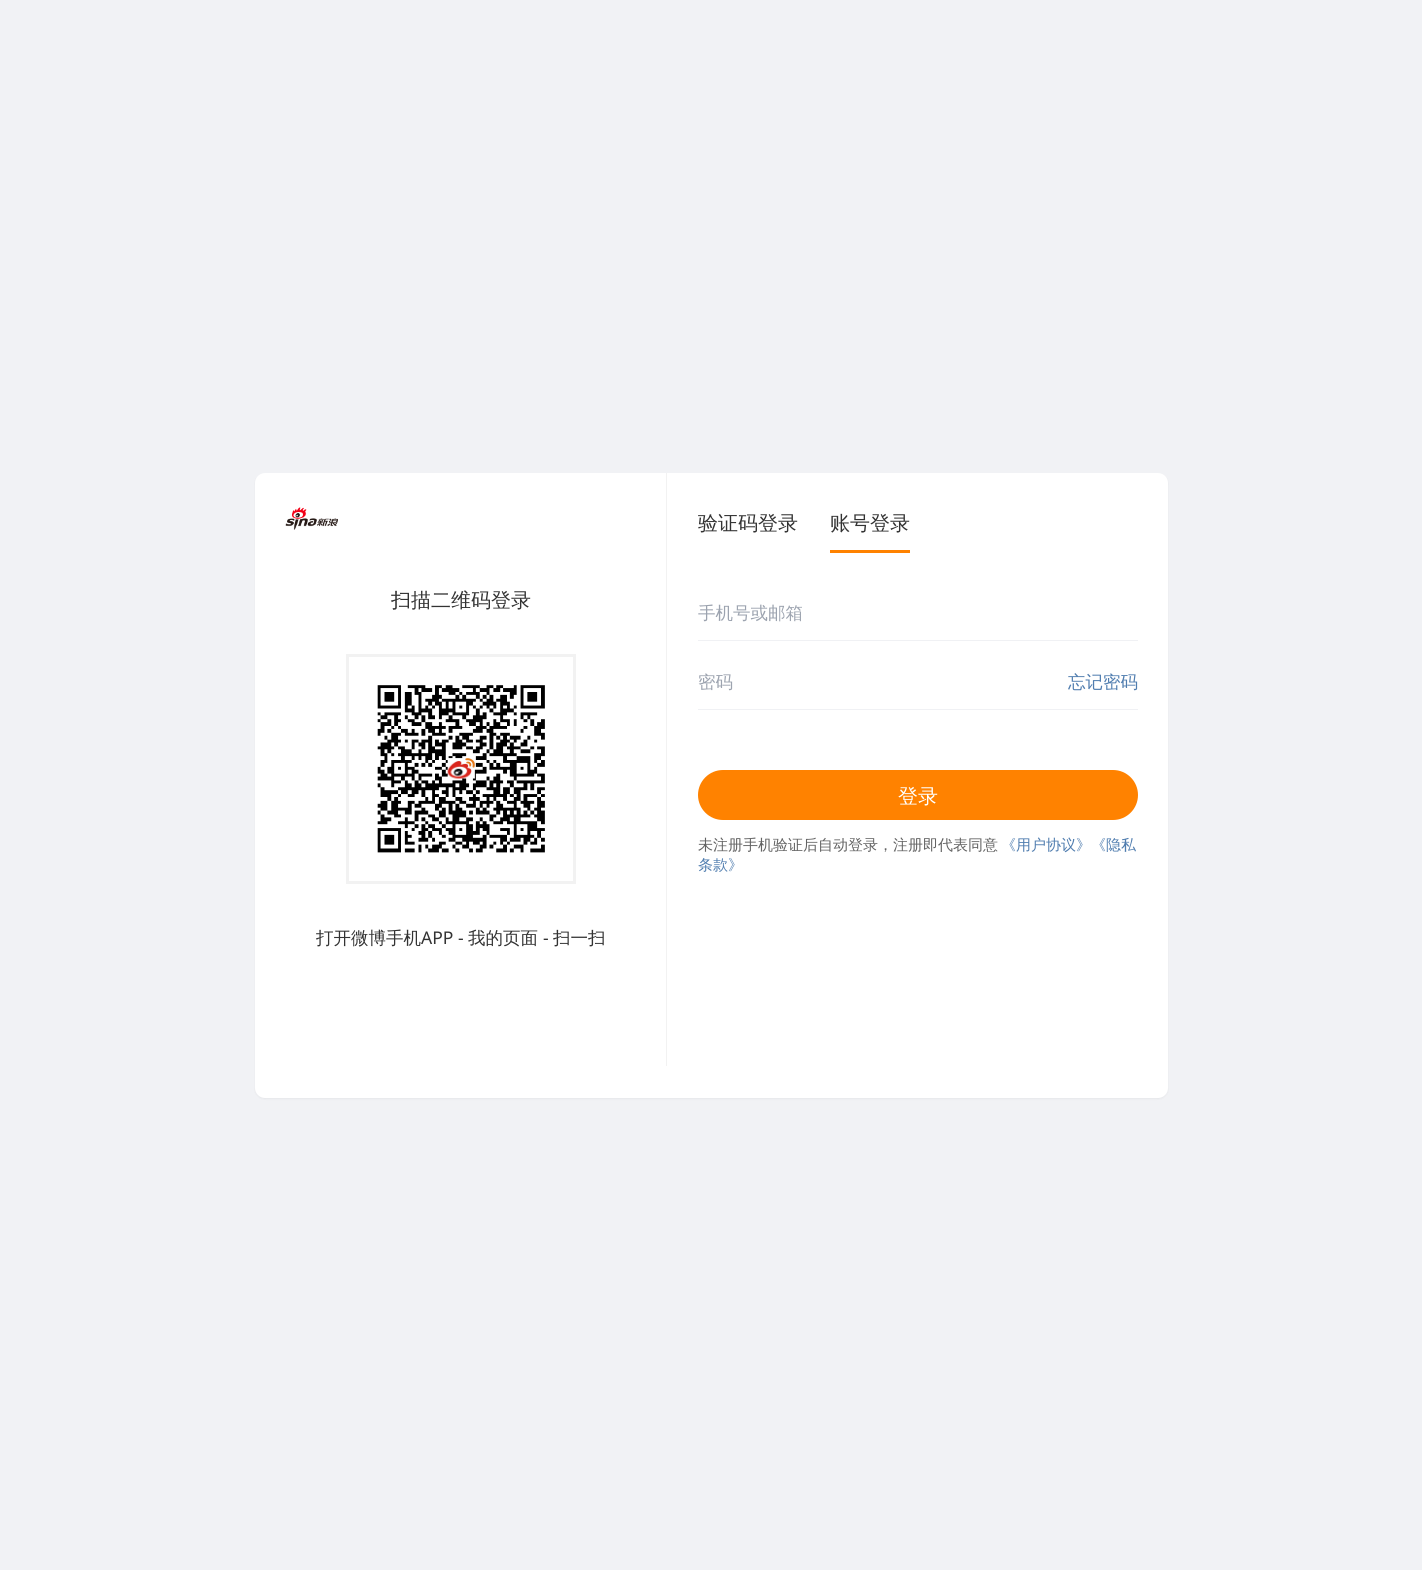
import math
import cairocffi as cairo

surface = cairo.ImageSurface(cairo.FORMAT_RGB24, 1422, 1570)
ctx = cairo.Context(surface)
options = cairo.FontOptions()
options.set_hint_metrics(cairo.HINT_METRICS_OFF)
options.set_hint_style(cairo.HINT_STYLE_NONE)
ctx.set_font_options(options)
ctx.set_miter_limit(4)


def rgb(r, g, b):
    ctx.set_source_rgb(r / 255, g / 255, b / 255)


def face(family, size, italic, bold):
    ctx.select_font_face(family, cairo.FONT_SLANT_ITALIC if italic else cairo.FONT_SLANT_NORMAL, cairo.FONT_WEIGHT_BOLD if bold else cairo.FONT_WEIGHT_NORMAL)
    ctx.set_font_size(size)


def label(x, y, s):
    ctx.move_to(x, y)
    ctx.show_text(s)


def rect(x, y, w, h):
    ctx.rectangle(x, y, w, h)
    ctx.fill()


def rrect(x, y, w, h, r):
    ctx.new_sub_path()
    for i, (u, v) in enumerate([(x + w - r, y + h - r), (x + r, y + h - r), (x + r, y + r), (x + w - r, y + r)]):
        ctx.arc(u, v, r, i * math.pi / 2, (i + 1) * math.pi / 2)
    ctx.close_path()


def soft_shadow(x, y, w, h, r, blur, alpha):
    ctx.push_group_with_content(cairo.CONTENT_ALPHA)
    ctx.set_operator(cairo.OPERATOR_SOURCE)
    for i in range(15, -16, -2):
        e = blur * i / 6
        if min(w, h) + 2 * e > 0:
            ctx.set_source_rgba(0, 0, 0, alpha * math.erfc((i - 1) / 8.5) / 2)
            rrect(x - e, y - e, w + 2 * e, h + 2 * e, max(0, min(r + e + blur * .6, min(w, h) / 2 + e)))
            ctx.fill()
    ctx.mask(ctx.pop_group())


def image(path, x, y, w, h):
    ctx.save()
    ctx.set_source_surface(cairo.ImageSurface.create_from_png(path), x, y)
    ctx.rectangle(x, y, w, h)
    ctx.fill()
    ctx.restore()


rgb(241, 242, 245)
ctx.paint()
rgb(0, 0, 0)
soft_shadow(255, 474, 913, 625, 10, 1, 0.05)
rgb(255, 255, 255)
rrect(255, 473, 913, 625, 10)
ctx.fill()
image('image0.png', 285, 507, 53, 23)
rgb(242, 242, 242)
rect(666, 473, 1, 593)
face('WenQuanYi Zen Hei Medium', 20, 0, 0)
rgb(51, 51, 51)
label(391, 607, '扫描二维码登录')
ctx.rectangle(347.5, 655.5, 227, 227)
rgb(242, 242, 242)
ctx.set_line_width(3)
ctx.stroke()
image('image1.png', 377, 685, 168, 168)
face('WenQuanYi Zen Hei Medium', 17.5, 0, 0)
rgb(51, 51, 51)
label(316, 944, '打开微博手机')
face('Noto Sans', 17.5, 0, 0)
label(421, 944, 'APP -')
face('WenQuanYi Zen Hei Medium', 17.5, 0, 0)
label(468, 944, '我的页面')
face('Noto Sans', 17.5, 0, 0)
label(543, 944, '-')
face('WenQuanYi Zen Hei Medium', 17.5, 0, 0)
label(553, 944, '扫一扫')
face('WenQuanYi Zen Hei Medium', 20, 0, 0)
label(698, 530, '验证码登录')
rgb(255, 130, 0)
rect(830, 550, 80, 3)
rgb(51, 51, 51)
label(830, 530, '账号登录')
rgb(240, 241, 244)
rect(698, 640, 440, 1)
face('WenQuanYi Zen Hei Medium', 17.5, 0, 0)
rgb(156, 163, 175)
label(698, 619, '手机号或邮箱')
rgb(240, 241, 244)
rect(698, 709, 440, 1)
rgb(156, 163, 175)
label(698, 688, '密码')
rgb(80, 125, 175)
label(1068, 688, '忘记密码')
rgb(255, 130, 0)
rrect(698, 770, 440, 50, 25)
ctx.fill()
face('WenQuanYi Zen Hei Medium', 20, 0, 0)
rgb(255, 255, 255)
label(898, 803, '登录')
face('WenQuanYi Zen Hei Medium', 15, 0, 0)
rgb(99, 99, 99)
label(698, 850, '未注册手机验证后自动登录，注册即代表同意')
rgb(80, 125, 175)
label(1001, 850, '《用户协议》《隐私')
label(698, 870, '条款》')
surface.write_to_png('render.png')
